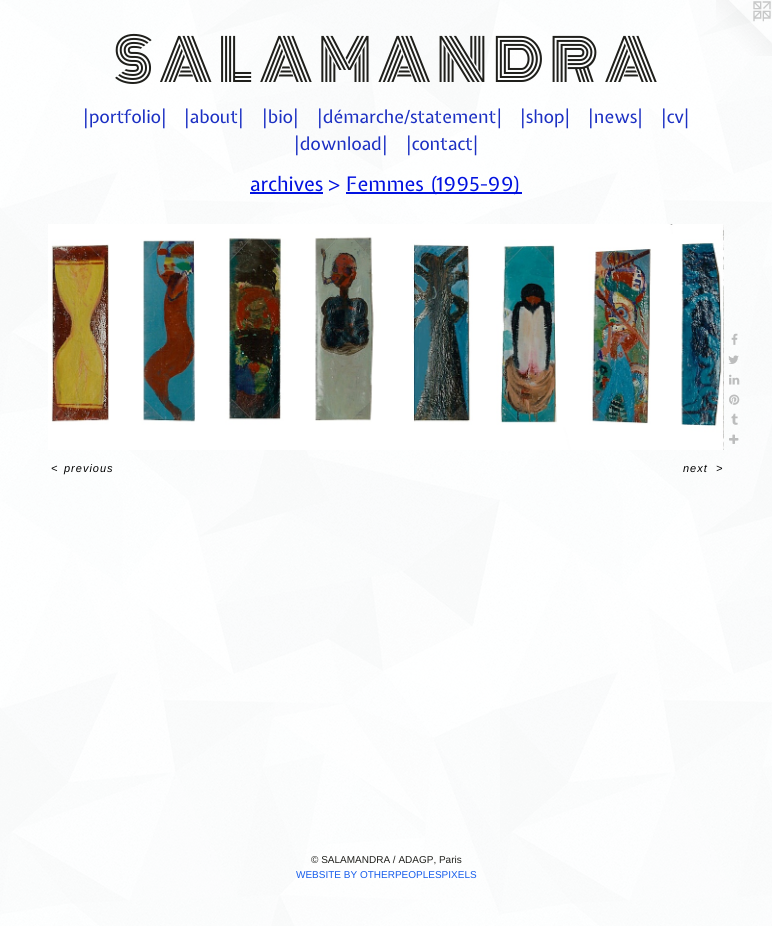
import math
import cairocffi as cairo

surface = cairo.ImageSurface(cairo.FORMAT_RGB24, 772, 926)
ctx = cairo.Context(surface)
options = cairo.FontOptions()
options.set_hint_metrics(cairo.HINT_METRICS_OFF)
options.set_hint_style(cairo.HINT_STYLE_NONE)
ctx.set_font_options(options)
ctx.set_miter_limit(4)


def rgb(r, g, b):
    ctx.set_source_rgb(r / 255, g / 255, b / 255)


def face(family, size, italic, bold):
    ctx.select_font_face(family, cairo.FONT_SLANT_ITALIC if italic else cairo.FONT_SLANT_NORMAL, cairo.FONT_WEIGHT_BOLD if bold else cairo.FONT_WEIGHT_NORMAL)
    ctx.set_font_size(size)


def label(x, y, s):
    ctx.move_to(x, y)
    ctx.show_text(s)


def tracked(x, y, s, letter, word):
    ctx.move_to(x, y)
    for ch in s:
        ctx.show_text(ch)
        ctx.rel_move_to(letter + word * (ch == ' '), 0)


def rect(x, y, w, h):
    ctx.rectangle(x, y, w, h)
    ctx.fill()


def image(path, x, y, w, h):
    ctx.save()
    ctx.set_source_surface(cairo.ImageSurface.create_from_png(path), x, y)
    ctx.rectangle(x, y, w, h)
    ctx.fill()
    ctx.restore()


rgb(255, 255, 255)
ctx.paint()
image('image0.png', 0, 0, 772, 926)
face('Monoton', 57, 0, 0)
rgb(31, 31, 27)
label(114, 82, 'S A L A M A N D R A')
image('image1.png', 716, 0, 56, 56)
face('Expletus Sans', 18, 0, 0)
rgb(28, 48, 195)
label(83, 123, '|portfolio|')
label(184, 123, '|about|')
label(262, 123, '|bio|')
label(317, 123, '|démarche/statement|')
label(520, 123, '|shop|')
label(588, 123, '|news|')
label(661, 123, '|cv|')
label(294, 150, '|download|')
label(406, 150, '|contact|')
face('Expletus Sans', 20, 0, 0)
rgb(2, 18, 224)
label(250, 191, 'archives >')
rect(250, 192, 73, 2)
rect(346, 192, 176, 2)
label(346, 191, 'Femmes (1995-99)')
image('image2.png', 48, 224, 676, 226)
image('image3.png', 731, 333, 7, 12)
image('image4.png', 728, 355, 11, 9)
image('image5.png', 729, 374, 11, 11)
image('image6.png', 729, 394, 11, 11)
image('image7.png', 731, 413, 7, 12)
image('image8.png', 729, 434, 10, 10)
face('Liberation Sans', 11, 1, 0)
rgb(0, 0, 0)
tracked(51, 472, '<', 1, 0)
tracked(64, 472, 'previous', 1, 0)
tracked(683, 472, 'next', 1, 0)
tracked(716, 472, '>', 1, 0)
face('Liberation Sans', 10, 0, 0)
rgb(31, 31, 27)
label(311, 863, '© SALAMANDRA / ADAGP, Paris')
rgb(21, 92, 235)
label(296, 878, 'WEBSITE BY OTHERPEOPLESPIXELS')
surface.write_to_png('render.png')
